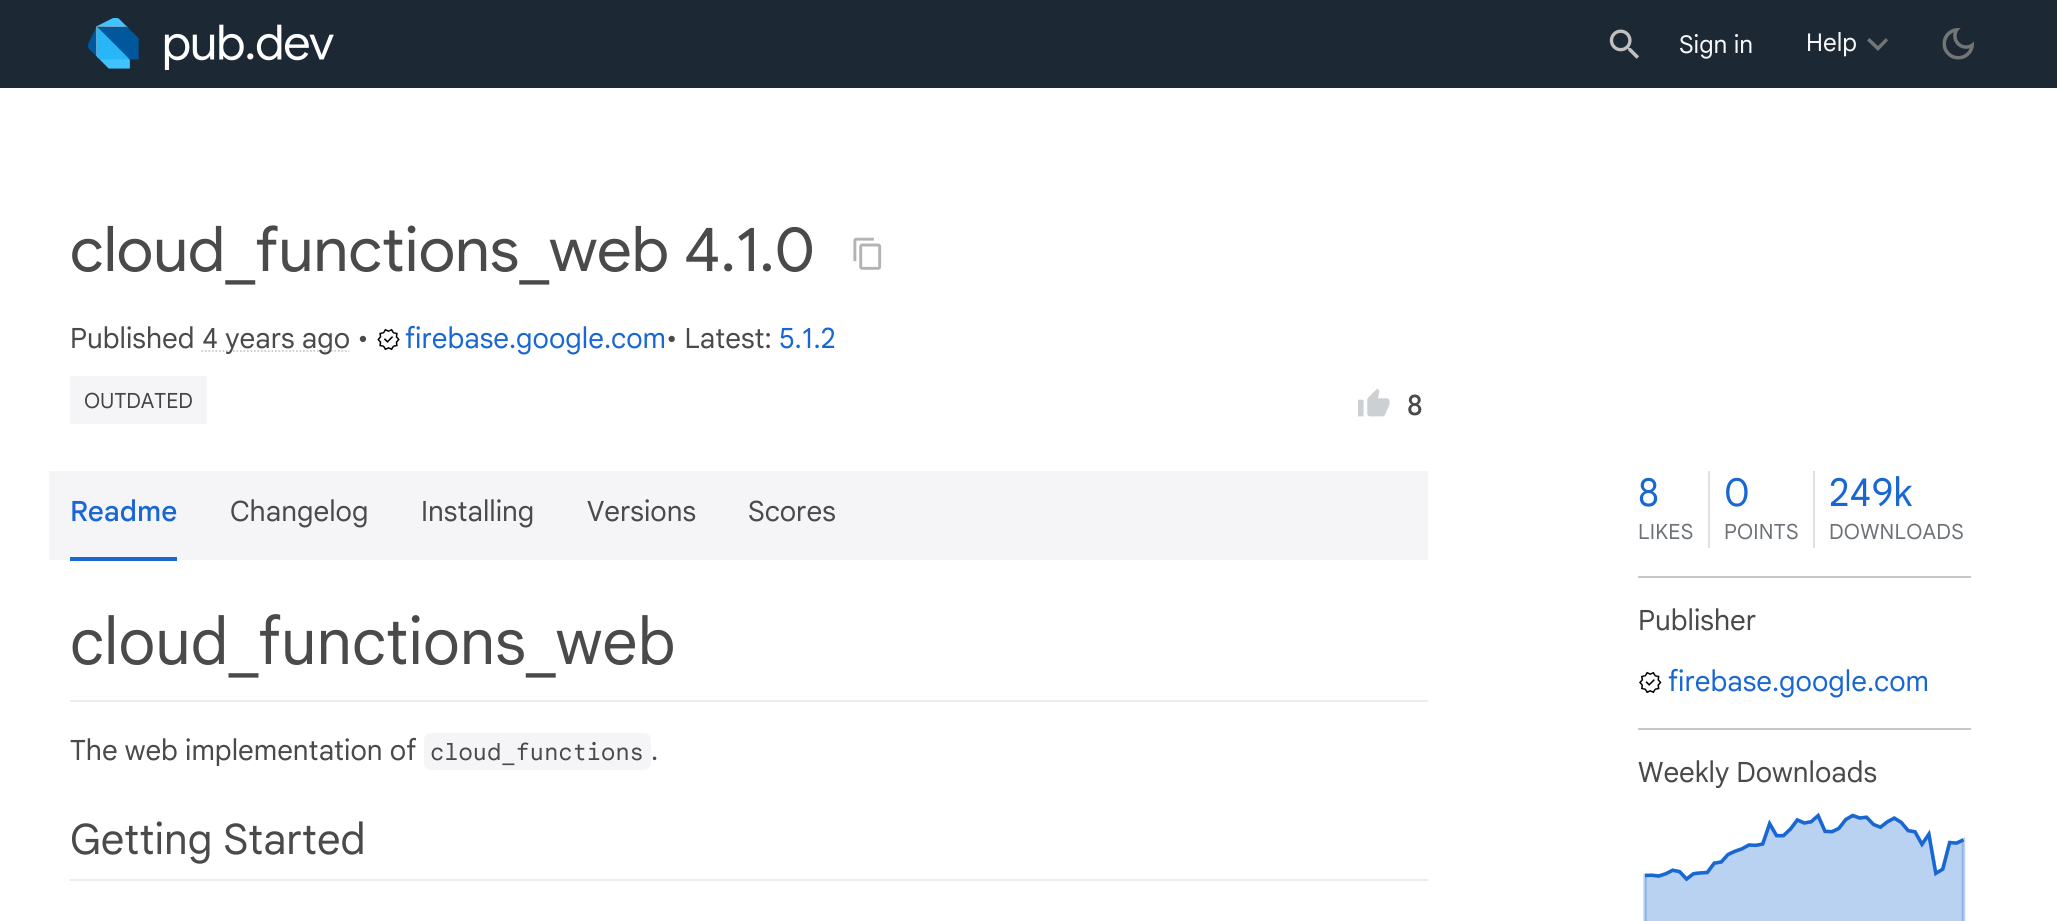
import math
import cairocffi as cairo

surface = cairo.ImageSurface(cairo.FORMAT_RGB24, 2057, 921)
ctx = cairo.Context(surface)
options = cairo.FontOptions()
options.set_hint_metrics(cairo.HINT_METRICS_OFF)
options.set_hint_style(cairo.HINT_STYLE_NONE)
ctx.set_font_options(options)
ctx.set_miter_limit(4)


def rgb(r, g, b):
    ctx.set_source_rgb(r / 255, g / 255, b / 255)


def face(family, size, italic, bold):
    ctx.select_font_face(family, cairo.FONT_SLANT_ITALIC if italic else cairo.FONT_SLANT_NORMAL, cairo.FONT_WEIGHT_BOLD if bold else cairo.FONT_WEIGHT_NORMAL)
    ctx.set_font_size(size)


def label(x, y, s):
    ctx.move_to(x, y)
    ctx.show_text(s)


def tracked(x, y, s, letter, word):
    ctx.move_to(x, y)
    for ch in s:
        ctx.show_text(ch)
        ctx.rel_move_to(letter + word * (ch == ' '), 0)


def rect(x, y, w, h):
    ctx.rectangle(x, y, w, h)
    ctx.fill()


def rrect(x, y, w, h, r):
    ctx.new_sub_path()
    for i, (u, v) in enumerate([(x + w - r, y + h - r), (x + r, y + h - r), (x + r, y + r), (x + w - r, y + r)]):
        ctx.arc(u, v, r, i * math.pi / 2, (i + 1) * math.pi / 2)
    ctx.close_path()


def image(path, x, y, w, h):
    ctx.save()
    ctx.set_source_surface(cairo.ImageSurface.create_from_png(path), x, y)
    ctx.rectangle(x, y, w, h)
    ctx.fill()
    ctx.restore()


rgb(255, 255, 255)
ctx.paint()
rgb(28, 40, 52)
rect(0, 0, 2057, 88)
image('image0.png', 88, 18, 246, 52)
image('image1.png', 1609, 29, 30, 30)
face('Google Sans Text', 24.5, 0, 0)
rgb(248, 249, 250)
label(1679, 53, 'Sign in')
label(1806, 51, 'Help')
rgb(117, 117, 117)
ctx.new_path()
ctx.move_to(1869.5, 38)
ctx.line_to(1878, 46)
ctx.line_to(1886, 38)
ctx.line_to(1888, 40.5)
ctx.line_to(1878, 51)
ctx.line_to(1867, 40.5)
ctx.close_path()
ctx.fill()
image('image2.png', 1942, 28, 32, 32)
face('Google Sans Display', 63, 0, 0)
rgb(74, 74, 74)
label(70, 271, 'cloud_functions_web 4.1.0')
image('image3.png', 853, 237, 29, 33)
face('Google Sans Text', 28, 0, 0)
label(70, 348, 'Published')
ctx.new_path()
ctx.move_to(201.5, 351)
ctx.line_to(349.5, 351)
rgb(204, 204, 204)
ctx.set_line_width(1.8)
ctx.set_dash([1.75, 1.75])
ctx.stroke()
rgb(74, 74, 74)
label(202, 348, '4 years ago •')
image('image4.png', 377, 328, 23, 23)
rgb(25, 103, 210)
label(405, 348, 'firebase.google.com')
rgb(74, 74, 74)
label(666, 348, '• Latest:')
rgb(25, 103, 210)
label(779, 348, '5.1.2')
rgb(245, 245, 247)
rect(70, 376, 137, 48)
face('Google Sans Text', 21, 0, 0)
rgb(68, 68, 68)
label(84, 408, 'OUTDATED')
image('image5.png', 1358, 388, 32, 29)
face('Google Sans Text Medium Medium', 28, 0, 0)
rgb(74, 74, 74)
label(1407, 415, '8')
rgb(245, 245, 247)
rect(49, 471, 1379, 89)
rgb(25, 103, 210)
rect(70, 557, 107, 4)
label(70, 521, 'Readme')
face('Google Sans Text', 28, 0, 0)
rgb(74, 74, 74)
label(230, 521, 'Changelog')
label(421, 521, 'Installing')
label(587, 521, 'Versions')
label(748, 521, 'Scores')
rgb(234, 236, 239)
rect(70, 700, 1358, 2)
face('Google Sans Text', 63, 0, 0)
rgb(74, 74, 74)
label(70, 664, 'cloud_functions_web')
face('Google Sans Text', 28, 0, 0)
label(70, 760, 'The web implementation of')
rgb(245, 245, 247)
rrect(424, 733, 227, 37, 7)
ctx.fill()
face('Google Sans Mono', 23.75, 0, 0)
rgb(74, 74, 74)
label(430, 760, 'cloud_functions')
face('Google Sans Text', 28, 0, 0)
label(651, 760, '.')
rgb(234, 236, 239)
rect(70, 879, 1358, 2)
face('Google Sans Text', 42, 0, 0)
rgb(74, 74, 74)
label(70, 854, 'Getting Started')
rgb(224, 224, 224)
rect(1708, 471, 2, 77)
face('Google Sans Text', 38.5, 0, 0)
rgb(25, 103, 210)
label(1638, 506, '8')
face('Google Sans Text', 21, 0, 0)
rgb(109, 114, 120)
tracked(1638, 539, 'LIKES', 0.25, 0)
rgb(224, 224, 224)
rect(1813, 471, 2, 77)
face('Google Sans Text', 38.5, 0, 0)
rgb(25, 103, 210)
label(1724, 506, '0')
face('Google Sans Text', 21, 0, 0)
rgb(109, 114, 120)
tracked(1724, 539, 'POINTS', 0.25, 0)
face('Google Sans Text', 38.5, 0, 0)
rgb(25, 103, 210)
label(1829, 506, '249k')
face('Google Sans Text', 21, 0, 0)
rgb(109, 114, 120)
tracked(1829, 539, 'DOWNLOADS', 0.25, 0)
rgb(200, 200, 202)
rect(1638, 576, 333, 2)
face('Google Sans Text', 28, 0, 0)
rgb(74, 74, 74)
label(1638, 630, 'Publisher')
image('image6.png', 1639, 671, 23, 23)
rgb(25, 103, 210)
label(1668, 691, 'firebase.google.com')
rgb(200, 200, 202)
rect(1638, 728, 333, 2)
rgb(74, 74, 74)
label(1638, 782, 'Weekly Downloads')
image('image7.png', 1643, 812, 323, 109)
surface.write_to_png('render.png')
